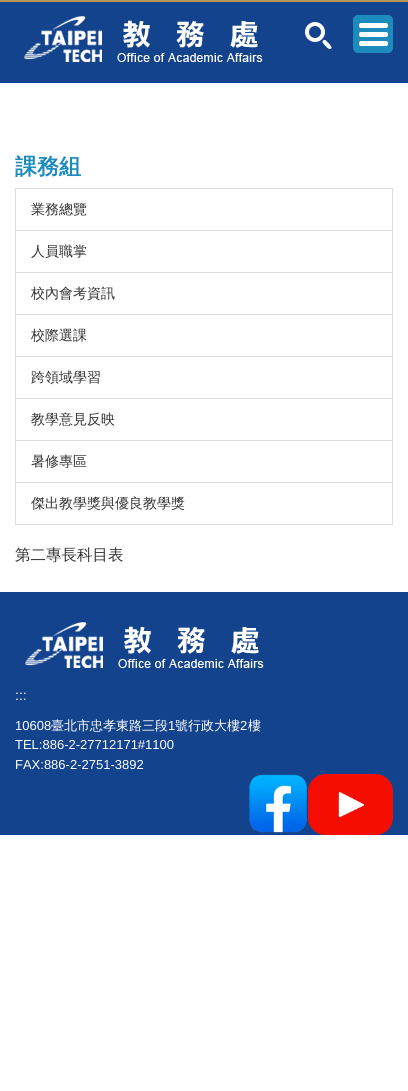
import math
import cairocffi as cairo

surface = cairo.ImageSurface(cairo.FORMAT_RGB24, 408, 1091)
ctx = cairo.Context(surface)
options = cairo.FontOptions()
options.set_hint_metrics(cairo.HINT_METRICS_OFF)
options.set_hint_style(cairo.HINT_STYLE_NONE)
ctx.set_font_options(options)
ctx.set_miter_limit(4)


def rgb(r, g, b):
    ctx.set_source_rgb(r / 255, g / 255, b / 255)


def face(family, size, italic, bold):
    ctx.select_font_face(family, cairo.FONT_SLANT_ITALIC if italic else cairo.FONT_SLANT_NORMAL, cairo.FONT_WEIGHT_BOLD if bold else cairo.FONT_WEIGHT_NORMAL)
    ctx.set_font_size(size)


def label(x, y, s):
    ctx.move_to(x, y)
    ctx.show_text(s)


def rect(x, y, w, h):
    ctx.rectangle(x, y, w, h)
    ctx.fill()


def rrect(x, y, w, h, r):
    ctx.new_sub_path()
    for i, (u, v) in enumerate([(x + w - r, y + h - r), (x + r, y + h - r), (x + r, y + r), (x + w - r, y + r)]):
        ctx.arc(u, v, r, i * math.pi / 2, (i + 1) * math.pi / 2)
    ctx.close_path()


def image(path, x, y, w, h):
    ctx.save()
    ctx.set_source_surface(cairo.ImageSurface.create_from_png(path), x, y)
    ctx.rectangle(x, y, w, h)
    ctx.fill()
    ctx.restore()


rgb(255, 255, 255)
ctx.paint()
rgb(19, 67, 141)
rect(0, 2, 408, 81)
rgb(180, 150, 86)
rect(0, 0, 408, 2)
image('image0.png', 24, 16, 239, 46)
ctx.arc(315, 32, 8, 0, 2 * math.pi)
rgb(255, 255, 255)
ctx.set_line_width(4)
ctx.stroke()
ctx.new_path()
ctx.move_to(326, 40.5)
ctx.curve_to(326.5, 41.5, 335, 48, 330, 49)
ctx.curve_to(328, 49, 326.5, 47, 325.5, 46)
ctx.line_to(322.5, 42.5)
ctx.curve_to(322, 40.5, 324.5, 39, 326, 40.5)
ctx.close_path()
ctx.fill()
rgb(29, 139, 190)
rrect(353, 15, 40, 38, 5)
ctx.fill()
image('image1.png', 359, 23, 29, 23)
face('WenQuanYi Zen Hei', 22, 0, 1)
label(15, 174, '課務組')
ctx.rectangle(15.5, 188.5, 377, 42)
rgb(221, 221, 221)
ctx.set_line_width(1)
ctx.stroke()
face('WenQuanYi Zen Hei Medium', 14, 0, 0)
rgb(51, 51, 51)
label(31, 214, '業務總覽')
ctx.rectangle(15.5, 230.5, 377, 42)
rgb(221, 221, 221)
ctx.stroke()
rgb(51, 51, 51)
label(31, 256, '人員職掌')
ctx.rectangle(15.5, 272.5, 377, 42)
rgb(221, 221, 221)
ctx.stroke()
rgb(51, 51, 51)
label(31, 298, '校內會考資訊')
ctx.rectangle(15.5, 314.5, 377, 42)
rgb(221, 221, 221)
ctx.stroke()
rgb(51, 51, 51)
label(31, 340, '校際選課')
ctx.rectangle(15.5, 356.5, 377, 42)
rgb(221, 221, 221)
ctx.stroke()
rgb(51, 51, 51)
label(31, 382, '跨領域學習')
ctx.rectangle(15.5, 398.5, 377, 42)
rgb(221, 221, 221)
ctx.stroke()
rgb(51, 51, 51)
label(31, 424, '教學意見反映')
ctx.rectangle(15.5, 440.5, 377, 42)
rgb(221, 221, 221)
ctx.stroke()
rgb(51, 51, 51)
label(31, 466, '暑修專區')
ctx.rectangle(15.5, 482.5, 377, 42)
rgb(221, 221, 221)
ctx.stroke()
rgb(51, 51, 51)
label(31, 508, '傑出教學獎與優良教學獎')
face('WenQuanYi Zen Hei Medium', 15.5, 0, 0)
label(15, 560, '第二專長科目表')
rgb(19, 67, 141)
rect(0, 592, 408, 243)
image('image0.png', 25, 622, 239, 46)
face('Liberation Sans', 14, 0, 0)
rgb(255, 255, 255)
label(15, 700, ':::')
face('Liberation Sans', 13, 0, 0)
label(15, 730, '10608')
face('WenQuanYi Zen Hei Medium', 13, 0, 0)
label(51, 730, '臺北市忠孝東路三段')
face('Liberation Sans', 13, 0, 0)
label(168, 730, '1')
face('WenQuanYi Zen Hei Medium', 13, 0, 0)
label(175, 730, '號行政大樓')
face('Liberation Sans', 13, 0, 0)
label(240, 730, '2')
face('WenQuanYi Zen Hei Medium', 13, 0, 0)
label(248, 730, '樓')
face('Liberation Sans', 13, 0, 0)
label(15, 749, 'TEL:886-2-27712171#1100')
label(15, 769, 'FAX:886-2-2751-3892')
image('image2.png', 249, 774, 58, 59)
image('image3.png', 308, 774, 85, 61)
surface.write_to_png('render.png')
